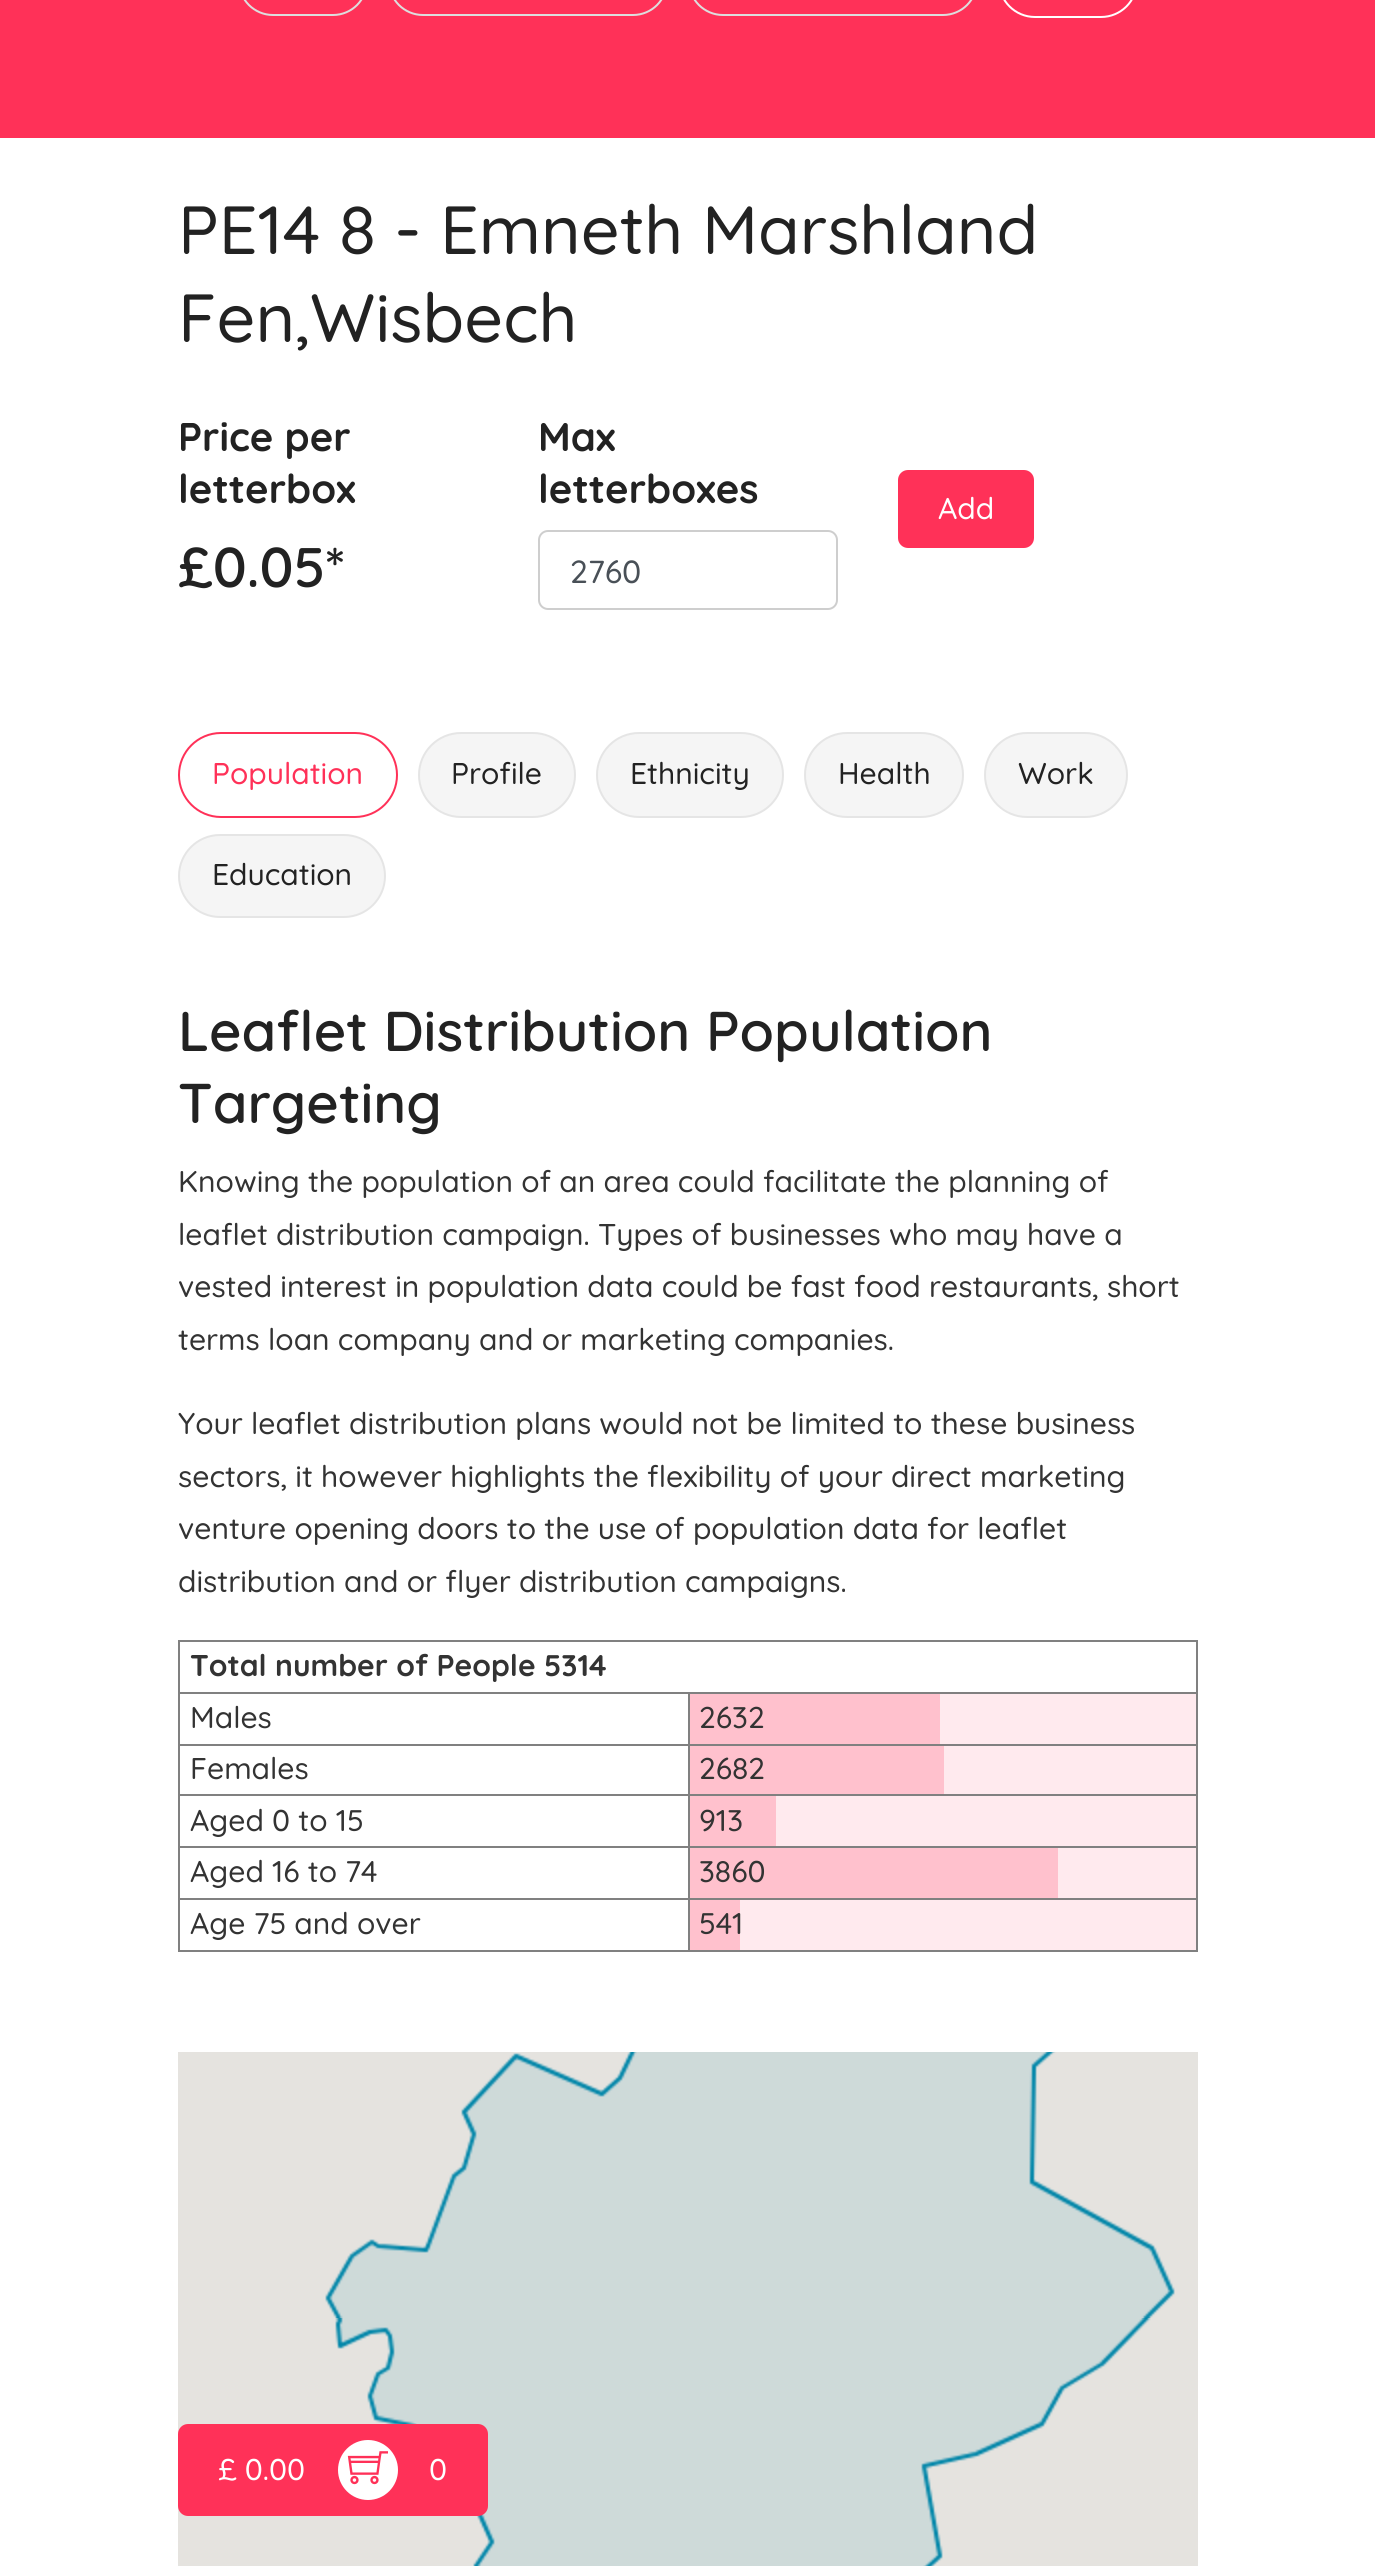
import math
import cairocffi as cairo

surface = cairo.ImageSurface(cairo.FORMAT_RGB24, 1375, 2566)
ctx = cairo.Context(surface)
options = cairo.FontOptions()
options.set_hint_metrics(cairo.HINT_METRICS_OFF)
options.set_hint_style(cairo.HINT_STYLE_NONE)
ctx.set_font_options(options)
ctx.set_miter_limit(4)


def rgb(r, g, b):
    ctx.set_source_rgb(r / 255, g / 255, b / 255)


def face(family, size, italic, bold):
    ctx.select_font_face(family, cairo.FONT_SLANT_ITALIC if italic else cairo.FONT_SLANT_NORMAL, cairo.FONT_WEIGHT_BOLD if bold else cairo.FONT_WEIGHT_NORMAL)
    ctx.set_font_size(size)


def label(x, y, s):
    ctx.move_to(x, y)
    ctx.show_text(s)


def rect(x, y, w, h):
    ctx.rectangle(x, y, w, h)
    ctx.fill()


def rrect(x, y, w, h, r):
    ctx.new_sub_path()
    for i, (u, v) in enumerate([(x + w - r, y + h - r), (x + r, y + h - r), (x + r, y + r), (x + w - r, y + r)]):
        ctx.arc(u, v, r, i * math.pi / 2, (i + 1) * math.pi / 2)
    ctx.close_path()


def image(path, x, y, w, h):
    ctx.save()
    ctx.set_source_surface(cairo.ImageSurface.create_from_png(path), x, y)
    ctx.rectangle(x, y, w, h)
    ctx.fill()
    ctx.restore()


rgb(255, 255, 255)
ctx.paint()
rgb(255, 49, 88)
rect(0, 0, 1375, 138)
rrect(239, -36, 128, 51, 34)
rgb(221, 221, 221)
ctx.stroke()
rrect(389, -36, 278, 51, 34)
ctx.stroke()
rrect(689, -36, 288, 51, 34)
ctx.stroke()
rrect(999, -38, 138, 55, 36)
rgb(255, 255, 255)
ctx.stroke()
face('Quicksand Medium', 68, 0, 0)
rgb(34, 34, 34)
label(178, 254, 'PE14 8 - Emneth Marshland')
label(178, 342, 'Fen,Wisbech')
face('Quicksand', 40, 0, 1)
label(178, 451, 'Price per')
label(178, 503, 'letterbox')
face('Quicksand SemiBold', 56, 0, 0)
label(178, 587, '£0.05*')
face('Quicksand', 40, 0, 1)
label(538, 451, 'Max')
label(538, 503, 'letterboxes')
rrect(539, 531, 298, 78, 9)
rgb(206, 206, 206)
ctx.stroke()
face('Quicksand Medium', 32, 0, 0)
rgb(73, 80, 87)
label(570, 583, '2760')
rgb(255, 49, 88)
rrect(898, 470, 136, 78, 10)
ctx.fill()
face('Quicksand Medium', 30, 0, 0)
rgb(255, 255, 255)
label(938, 519, 'Add')
rrect(179, 733, 218, 84, 42)
rgb(255, 49, 88)
ctx.stroke()
label(212, 784, 'Population')
rgb(245, 245, 245)
rrect(419, 733, 156, 84, 42)
ctx.fill_preserve()
rgb(229, 229, 229)
ctx.stroke()
rgb(34, 34, 34)
label(451, 784, 'Profile')
rgb(245, 245, 245)
rrect(597, 733, 186, 84, 42)
ctx.fill_preserve()
rgb(229, 229, 229)
ctx.stroke()
rgb(34, 34, 34)
label(630, 784, 'Ethnicity')
rgb(245, 245, 245)
rrect(805, 733, 158, 84, 42)
ctx.fill_preserve()
rgb(229, 229, 229)
ctx.stroke()
rgb(34, 34, 34)
label(838, 784, 'Health')
rgb(245, 245, 245)
rrect(985, 733, 142, 84, 42)
ctx.fill_preserve()
rgb(229, 229, 229)
ctx.stroke()
rgb(34, 34, 34)
label(1018, 784, 'Work')
rgb(245, 245, 245)
rrect(179, 835, 206, 82, 41)
ctx.fill_preserve()
rgb(229, 229, 229)
ctx.stroke()
rgb(34, 34, 34)
label(212, 885, 'Education')
face('Quicksand SemiBold', 56, 0, 0)
label(178, 1051, 'Leaflet Distribution Population')
label(178, 1123, 'Targeting')
face('Quicksand Medium', 30, 0, 0)
rgb(51, 51, 51)
label(178, 1192, 'Knowing the population of an area could facilitate the planning of')
label(178, 1245, 'leaflet distribution campaign. Types of businesses who may have a')
label(178, 1297, 'vested interest in population data could be fast food restaurants, short')
label(178, 1350, 'terms loan company and or marketing companies.')
label(178, 1434, 'Your leaflet distribution plans would not be limited to these business')
label(178, 1487, 'sectors, it however highlights the flexibility of your direct marketing')
label(178, 1539, 'venture opening doors to the use of population data for leaflet')
label(178, 1592, 'distribution and or flyer distribution campaigns.')
rgb(128, 128, 128)
rect(178, 1640, 1020, 2)
rect(1196, 1640, 2, 312)
rect(178, 1950, 1020, 2)
rect(178, 1640, 2, 312)
face('Quicksand', 30, 0, 1)
rgb(51, 51, 51)
label(190, 1676, 'Total number of People 5314')
rgb(128, 128, 128)
rect(688, 1692, 510, 2)
rect(688, 1744, 510, 2)
rect(688, 1794, 510, 2)
rect(688, 1846, 510, 2)
rect(688, 1898, 510, 2)
rect(688, 1898, 2, 54)
rect(178, 1898, 512, 2)
rect(688, 1846, 2, 54)
rect(178, 1846, 512, 2)
rect(688, 1794, 2, 54)
rect(178, 1794, 512, 2)
rect(688, 1744, 2, 52)
rect(178, 1744, 512, 2)
rect(688, 1692, 2, 54)
rect(178, 1692, 512, 2)
face('Quicksand Medium', 30, 0, 0)
rgb(51, 51, 51)
label(190, 1728, 'Males')
rgb(255, 234, 238)
rect(940, 1694, 256, 50)
rgb(255, 193, 205)
rect(690, 1694, 250, 50)
rgb(51, 51, 51)
label(699, 1728, '2632')
label(190, 1779, 'Females')
rgb(255, 234, 238)
rect(944, 1746, 252, 48)
rgb(255, 193, 205)
rect(690, 1746, 254, 48)
rgb(51, 51, 51)
label(699, 1779, '2682')
label(190, 1831, 'Aged 0 to 15')
rgb(255, 234, 238)
rect(776, 1796, 420, 50)
rgb(255, 193, 205)
rect(690, 1796, 86, 50)
rgb(51, 51, 51)
label(699, 1831, '913')
label(190, 1882, 'Aged 16 to 74')
rgb(255, 234, 238)
rect(1058, 1848, 138, 50)
rgb(255, 193, 205)
rect(690, 1848, 368, 50)
rgb(51, 51, 51)
label(699, 1882, '3860')
label(190, 1934, 'Age 75 and over')
rgb(255, 234, 238)
rect(740, 1900, 456, 50)
rgb(255, 193, 205)
rect(690, 1900, 50, 50)
rgb(51, 51, 51)
label(699, 1934, '541')
rgb(229, 227, 223)
rect(178, 2052, 1020, 514)
image('image0.png', 325, 2052, 457, 266)
image('image1.png', 782, 2052, 393, 266)
image('image2.png', 335, 2318, 447, 248)
image('image3.png', 782, 2318, 369, 248)
rgb(255, 49, 88)
rrect(178, 2424, 310, 92, 10)
ctx.fill()
rgb(255, 255, 255)
label(218, 2480, '£ 0.00')
ctx.new_path()
ctx.arc(368, 2470, 30, 0, 2 * math.pi)
ctx.fill()
image('image4.png', 347, 2451, 41, 34)
label(429, 2480, '0')
surface.write_to_png('render.png')
